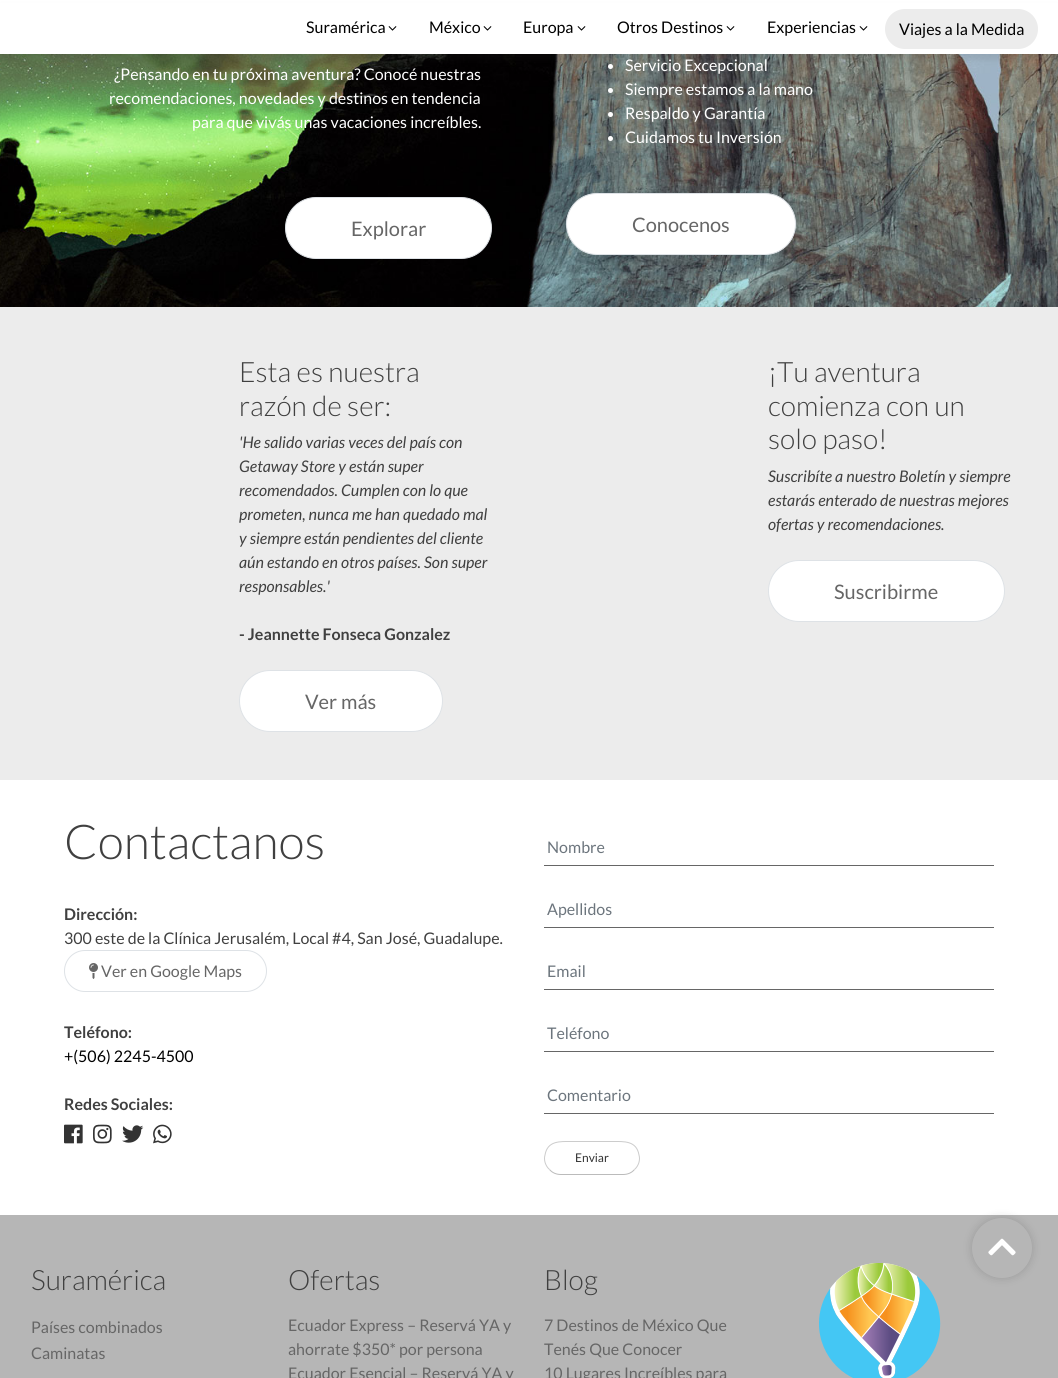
import math
import cairocffi as cairo

surface = cairo.ImageSurface(cairo.FORMAT_RGB24, 1058, 1378)
ctx = cairo.Context(surface)
options = cairo.FontOptions()
options.set_hint_metrics(cairo.HINT_METRICS_OFF)
options.set_hint_style(cairo.HINT_STYLE_NONE)
ctx.set_font_options(options)
ctx.set_miter_limit(4)


def rgb(r, g, b):
    ctx.set_source_rgb(r / 255, g / 255, b / 255)


def face(family, size, italic, bold):
    ctx.select_font_face(family, cairo.FONT_SLANT_ITALIC if italic else cairo.FONT_SLANT_NORMAL, cairo.FONT_WEIGHT_BOLD if bold else cairo.FONT_WEIGHT_NORMAL)
    ctx.set_font_size(size)


def label(x, y, s):
    ctx.move_to(x, y)
    ctx.show_text(s)


def rect(x, y, w, h):
    ctx.rectangle(x, y, w, h)
    ctx.fill()


def rrect(x, y, w, h, r):
    ctx.new_sub_path()
    for i, (u, v) in enumerate([(x + w - r, y + h - r), (x + r, y + h - r), (x + r, y + r), (x + w - r, y + r)]):
        ctx.arc(u, v, r, i * math.pi / 2, (i + 1) * math.pi / 2)
    ctx.close_path()


def soft_shadow(x, y, w, h, r, blur, alpha):
    ctx.push_group_with_content(cairo.CONTENT_ALPHA)
    ctx.set_operator(cairo.OPERATOR_SOURCE)
    for i in range(15, -16, -2):
        e = blur * i / 6
        if min(w, h) + 2 * e > 0:
            ctx.set_source_rgba(0, 0, 0, alpha * math.erfc((i - 1) / 8.5) / 2)
            rrect(x - e, y - e, w + 2 * e, h + 2 * e, max(0, min(r + e + blur * .6, min(w, h) / 2 + e)))
            ctx.fill()
    ctx.mask(ctx.pop_group())


def image(path, x, y, w, h):
    ctx.save()
    ctx.set_source_surface(cairo.ImageSurface.create_from_png(path), x, y)
    ctx.rectangle(x, y, w, h)
    ctx.fill()
    ctx.restore()


rgb(255, 255, 255)
ctx.paint()
image('image1.png', 0, 54, 1058, 253)
rgb(255, 255, 255)
ctx.arc(610.5, 66.5, 2.5, 0, 2 * math.pi)
ctx.fill()
rgb(50, 50, 50)
soft_shadow(0, 6, 1058, 54, 0, 2.5, 0.1)
rgb(255, 255, 255)
rect(0, 3, 1058, 51)
face('Lato', 16, 0, 0)
rgb(0, 0, 0)
label(306, 33, 'Suramérica')
image('image0.png', 388, 26, 9, 5)
label(429, 33, 'México')
image('image0.png', 483, 26, 9, 5)
label(523, 33, 'Europa')
image('image0.png', 577, 26, 9, 5)
label(617, 33, 'Otros Destinos')
image('image0.png', 726, 26, 9, 5)
label(767, 33, 'Experiencias')
image('image0.png', 859, 26, 9, 5)
rgb(236, 236, 236)
rrect(885, 9, 153, 40, 20)
ctx.fill()
rgb(0, 0, 0)
label(899, 35, 'Viajes a la Medida')
rgb(255, 255, 255)
label(114, 80, '¿Pensando en tu próxima aventura? Conocé nuestras')
label(109, 104, 'recomendaciones, novedades y destinos en tendencia')
label(192, 128, 'para que vivás unas vacaciones increíbles.')
label(625, 71, 'Servicio Excepcional')
ctx.new_path()
ctx.arc(610.5, 90.5, 2.5, 0, 2 * math.pi)
ctx.fill()
label(625, 95, 'Siempre estamos a la mano')
ctx.new_path()
ctx.arc(610.5, 114.5, 2.5, 0, 2 * math.pi)
ctx.fill()
label(625, 119, 'Respaldo y Garantía')
ctx.new_path()
ctx.arc(610.5, 138.5, 2.5, 0, 2 * math.pi)
ctx.fill()
label(625, 143, 'Cuidamos tu Inversión')
rrect(285.5, 197.5, 206, 61, 30.5)
ctx.fill_preserve()
rgb(222, 226, 230)
ctx.set_line_width(1)
ctx.stroke()
face('Lato', 20, 0, 0)
rgb(102, 102, 102)
label(351, 236, 'Explorar')
rgb(255, 255, 255)
rrect(566.5, 193.5, 229, 61, 30.5)
ctx.fill_preserve()
rgb(222, 226, 230)
ctx.stroke()
rgb(102, 102, 102)
label(632, 232, 'Conocenos')
rgb(236, 236, 236)
rect(0, 307, 1058, 473)
face('Lato Light', 28, 0, 0)
rgb(64, 64, 64)
label(239, 382, 'Esta es nuestra')
label(239, 416, 'razón de ser:')
face('Lato', 16, 1, 0)
label(239, 448, '\'He salido varias veces del país con')
label(239, 472, 'Getaway Store y están super')
label(239, 496, 'recomendados. Cumplen con lo que')
label(239, 520, 'prometen, nunca me han quedado mal')
label(239, 544, 'y siempre están pendientes del cliente')
label(239, 568, 'aún estando en otros países. Son super')
label(239, 592, 'responsables.\'')
face('Lato', 16, 0, 1)
label(239, 640, '- Jeannette Fonseca Gonzalez')
rgb(255, 255, 255)
rrect(239.5, 670.5, 203, 61, 30.5)
ctx.fill_preserve()
rgb(222, 226, 230)
ctx.stroke()
face('Lato', 20, 0, 0)
rgb(102, 102, 102)
label(305, 709, 'Ver más')
face('Lato Light', 28, 0, 0)
rgb(64, 64, 64)
label(768, 382, '¡Tu aventura')
label(768, 416, 'comienza con un')
label(768, 449, 'solo paso!')
face('Lato', 16, 1, 0)
label(768, 482, 'Suscribíte a nuestro Boletín y siempre')
label(768, 506, 'estarás enterado de nuestras mejores')
label(768, 530, 'ofertas y recomendaciones.')
rgb(255, 255, 255)
rrect(768.5, 560.5, 236, 61, 30.5)
ctx.fill_preserve()
rgb(222, 226, 230)
ctx.stroke()
face('Lato', 20, 0, 0)
rgb(102, 102, 102)
label(834, 599, 'Suscribirme')
face('Lato Light', 48, 0, 0)
rgb(64, 64, 64)
label(64, 859, 'Contactanos')
face('Lato', 16, 0, 1)
label(64, 920, 'Dirección:')
face('Lato', 16, 0, 0)
label(64, 944, '300 este de la Clínica Jerusalém, Local #4, San José, Guadalupe.')
rrect(64.5, 950.5, 202, 41, 20.5)
rgb(222, 226, 230)
ctx.stroke()
image('image2.png', 89, 963, 9, 16)
rgb(102, 102, 102)
label(101, 977, 'Ver en Google Maps')
face('Lato', 16, 0, 1)
rgb(64, 64, 64)
label(64, 1038, 'Teléfono:')
face('Lato', 16, 0, 0)
rgb(0, 0, 0)
label(64, 1062, '+(506) 2245-4500')
face('Lato', 16, 0, 1)
rgb(64, 64, 64)
label(64, 1110, 'Redes Sociales:')
image('image3.png', 64, 1124, 19, 20)
image('image4.png', 93, 1124, 19, 20)
image('image5.png', 122, 1125, 22, 18)
image('image6.png', 153, 1124, 19, 20)
rgb(102, 102, 102)
rect(544, 865, 450, 1)
face('Lato', 16, 0, 0)
rgb(108, 117, 125)
label(547, 853, 'Nombre')
rgb(102, 102, 102)
rect(544, 927, 450, 1)
rgb(108, 117, 125)
label(547, 915, 'Apellidos')
rgb(102, 102, 102)
rect(544, 989, 450, 1)
rgb(108, 117, 125)
label(547, 977, 'Email')
rgb(102, 102, 102)
rect(544, 1051, 450, 1)
rgb(108, 117, 125)
label(547, 1039, 'Teléfono')
rgb(102, 102, 102)
rect(544, 1113, 450, 1)
rgb(108, 117, 125)
label(547, 1101, 'Comentario')
ctx.new_path()
ctx.move_to(634.5, 1169.5)
ctx.curve_to(631.5, 1173, 627.5, 1174.5, 623, 1174.5)
ctx.line_to(561, 1174.5)
ctx.curve_to(556.5, 1174.5, 552.5, 1173, 549.5, 1169.5)
rgb(187, 187, 187)
ctx.stroke()
ctx.new_path()
ctx.move_to(549.5, 1169.5)
ctx.curve_to(545.5, 1166, 543.5, 1160, 545, 1155)
ctx.curve_to(547.5, 1140.5, 560, 1141.5, 571.5, 1141.5)
ctx.line_to(612.5, 1141.5)
ctx.curve_to(624, 1141.5, 636.5, 1140.5, 639, 1155)
ctx.curve_to(640.5, 1160, 638.5, 1166, 634.5, 1169.5)
rgb(204, 204, 204)
ctx.stroke()
face('Lato', 12, 0, 0)
rgb(51, 51, 51)
label(575, 1162, 'Enviar')
rgb(182, 182, 182)
rect(0, 1215, 1058, 163)
rgb(0, 0, 0)
soft_shadow(972, 1218, 60, 60, 30, 5, 0.15)
rgb(182, 182, 182)
ctx.arc(1002, 1248, 30, 0, 2 * math.pi)
ctx.fill()
image('image7.png', 988, 1238, 28, 18)
face('Lato Light', 28, 0, 0)
rgb(64, 64, 64)
label(31, 1290, 'Suramérica')
face('Lato', 16, 0, 0)
rgb(102, 102, 102)
label(31, 1333, 'Países combinados')
label(31, 1359, 'Caminatas')
face('Lato Light', 28, 0, 0)
rgb(64, 64, 64)
label(288, 1290, 'Ofertas')
face('Lato', 16, 0, 0)
rgb(102, 102, 102)
label(288, 1331, 'Ecuador Express – Reservá YA y')
label(288, 1355, 'ahorrate $350* por persona')
label(288, 1379, 'Ecuador Esencial – Reservá YA y')
face('Lato Light', 28, 0, 0)
rgb(64, 64, 64)
label(544, 1290, 'Blog')
face('Lato', 16, 0, 0)
rgb(102, 102, 102)
label(544, 1331, '7 Destinos de México Que')
label(544, 1355, 'Tenés Que Conocer')
label(544, 1379, '10 Lugares Increíbles para')
image('image8.png', 819, 1263, 122, 115)
surface.write_to_png('render.png')
